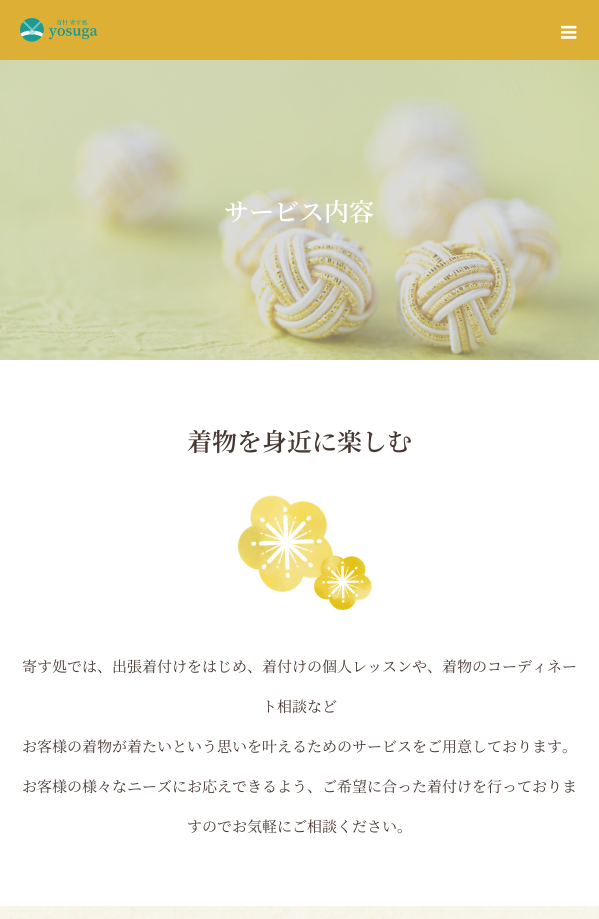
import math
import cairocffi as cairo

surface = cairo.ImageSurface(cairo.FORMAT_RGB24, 599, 919)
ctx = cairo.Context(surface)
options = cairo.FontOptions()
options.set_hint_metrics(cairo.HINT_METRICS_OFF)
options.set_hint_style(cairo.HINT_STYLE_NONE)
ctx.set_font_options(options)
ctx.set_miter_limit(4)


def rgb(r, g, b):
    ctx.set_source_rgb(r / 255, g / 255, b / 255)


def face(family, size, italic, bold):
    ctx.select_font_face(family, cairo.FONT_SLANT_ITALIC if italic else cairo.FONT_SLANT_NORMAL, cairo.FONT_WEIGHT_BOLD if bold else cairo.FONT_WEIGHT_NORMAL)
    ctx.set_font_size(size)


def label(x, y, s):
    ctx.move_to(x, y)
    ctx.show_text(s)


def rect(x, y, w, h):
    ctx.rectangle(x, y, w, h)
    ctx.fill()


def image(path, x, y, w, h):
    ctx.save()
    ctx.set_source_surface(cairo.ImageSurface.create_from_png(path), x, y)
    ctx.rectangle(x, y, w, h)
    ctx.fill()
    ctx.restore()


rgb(255, 255, 255)
ctx.paint()
rgb(221, 175, 53)
rect(0, 0, 599, 60)
image('image0.png', 20, 18, 78, 24)
image('image1.png', 561, 25, 16, 14)
image('image2.png', 0, 60, 599, 300)
face('Noto Serif JP SemiBold', 25, 0, 0)
rgb(255, 255, 255)
label(224, 221, 'サービス内容')
rgb(71, 55, 49)
label(187, 451, '着物を身近に楽しむ')
image('image3.png', 237, 495, 135, 115)
face('Noto Serif JP', 15, 0, 0)
label(22, 672, '寄す処では、出張着付けをはじめ、着付けの個人レッスンや、着物のコーディネー')
label(262, 712, 'ト相談など')
label(22, 752, 'お客様の着物が着たいという思いを叶えるためのサービスをご用意しております。')
label(22, 792, 'お客様の様々なニーズにお応えできるよう、ご希望に合った着付けを行っておりま')
label(187, 832, 'すのでお気軽にご相談ください。')
image('image4.png', 0, 906, 599, 13)
surface.write_to_png('render.png')
